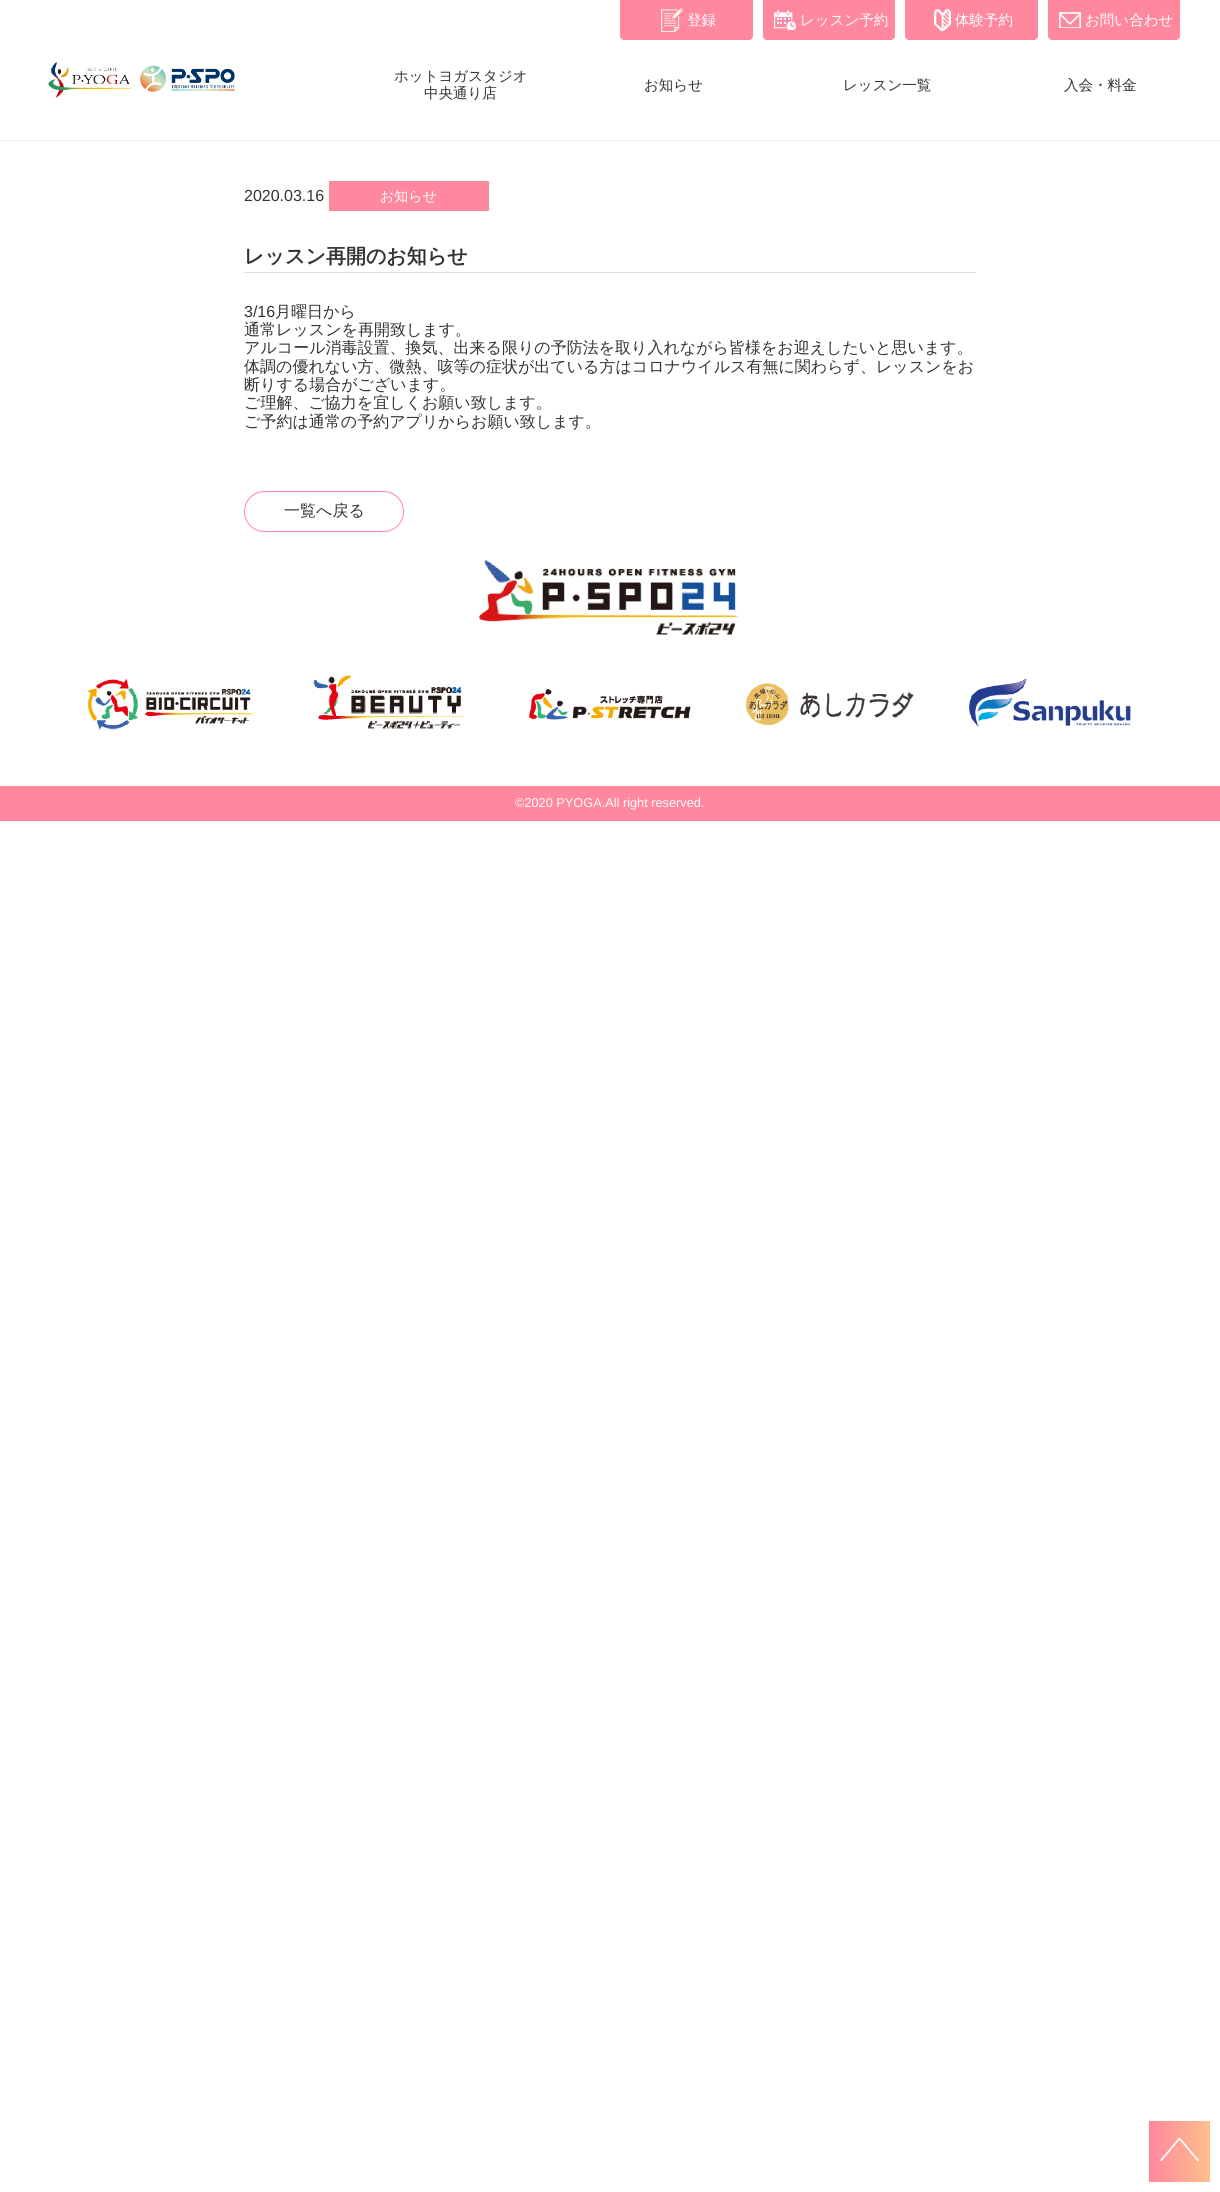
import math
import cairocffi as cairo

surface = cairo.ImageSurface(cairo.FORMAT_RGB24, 1220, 2192)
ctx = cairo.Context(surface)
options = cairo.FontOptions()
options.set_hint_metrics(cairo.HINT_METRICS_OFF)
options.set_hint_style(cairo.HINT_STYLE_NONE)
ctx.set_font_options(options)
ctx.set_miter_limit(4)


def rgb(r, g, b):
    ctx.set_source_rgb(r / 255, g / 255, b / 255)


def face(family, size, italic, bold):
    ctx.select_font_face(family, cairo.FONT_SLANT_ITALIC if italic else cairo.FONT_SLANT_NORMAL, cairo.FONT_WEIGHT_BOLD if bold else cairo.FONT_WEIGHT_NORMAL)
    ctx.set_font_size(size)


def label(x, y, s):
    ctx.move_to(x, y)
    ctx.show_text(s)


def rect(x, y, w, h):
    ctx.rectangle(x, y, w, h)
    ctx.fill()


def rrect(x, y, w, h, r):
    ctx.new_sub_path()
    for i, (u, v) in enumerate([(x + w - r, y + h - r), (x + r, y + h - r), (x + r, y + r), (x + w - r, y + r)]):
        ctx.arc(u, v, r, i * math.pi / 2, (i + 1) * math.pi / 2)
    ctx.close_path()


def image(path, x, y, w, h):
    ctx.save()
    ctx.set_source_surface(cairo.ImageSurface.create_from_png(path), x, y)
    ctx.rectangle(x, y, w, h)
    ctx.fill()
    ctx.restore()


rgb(255, 255, 255)
ctx.paint()
rgb(240, 240, 240)
rect(0, 140, 1220, 1)
rgb(255, 135, 158)
ctx.new_path()
ctx.move_to(620, 0)
ctx.line_to(753, 0)
ctx.line_to(753, 36)
ctx.curve_to(753, 38, 751, 40, 749, 40)
ctx.line_to(624, 40)
ctx.curve_to(622, 40, 620, 38, 620, 36)
ctx.close_path()
ctx.fill()
image('image0.png', 661, 8, 22, 24)
face('WenQuanYi Zen Hei Medium', 14.5, 0, 0)
rgb(255, 255, 255)
label(687, 25, '登録')
rgb(255, 135, 158)
ctx.new_path()
ctx.move_to(763, 0)
ctx.line_to(895, 0)
ctx.line_to(895, 36)
ctx.curve_to(895, 38, 893, 40, 891, 40)
ctx.line_to(767, 40)
ctx.curve_to(765, 40, 763, 38, 763, 36)
ctx.close_path()
ctx.fill()
image('image1.png', 774, 10, 22, 20)
rgb(255, 255, 255)
label(800, 25, 'レッスン予約')
rgb(255, 135, 158)
ctx.new_path()
ctx.move_to(905, 0)
ctx.line_to(1038, 0)
ctx.line_to(1038, 36)
ctx.curve_to(1038, 38, 1036, 40, 1034, 40)
ctx.line_to(909, 40)
ctx.curve_to(907, 40, 905, 38, 905, 36)
ctx.close_path()
ctx.fill()
image('image2.png', 934, 9, 17, 22)
rgb(255, 255, 255)
label(955, 25, '体験予約')
rgb(255, 135, 158)
ctx.new_path()
ctx.move_to(1048, 0)
ctx.line_to(1180, 0)
ctx.line_to(1180, 36)
ctx.curve_to(1180, 38, 1178, 40, 1176, 40)
ctx.line_to(1052, 40)
ctx.curve_to(1050, 40, 1048, 38, 1048, 36)
ctx.close_path()
ctx.fill()
image('image3.png', 1059, 12, 22, 16)
rgb(255, 255, 255)
label(1085, 25, 'お問い合わせ')
image('image4.png', 48, 62, 187, 36)
rgb(51, 51, 51)
label(394, 81, 'ホットヨガスタジオ')
label(424, 98, '中央通り店')
label(644, 90, 'お知らせ')
label(843, 90, 'レッスン一覧')
label(1064, 90, '入会・料金')
face('Liberation Sans', 16, 0, 0)
label(244, 201, '2020.03.16')
rgb(255, 135, 158)
rect(329, 181, 160, 30)
face('WenQuanYi Zen Hei Medium', 14, 0, 0)
rgb(255, 255, 255)
label(380, 201, 'お知らせ')
rgb(221, 221, 221)
rect(244, 272, 732, 1)
face('WenQuanYi Zen Hei', 20, 0, 1)
rgb(51, 51, 51)
label(244, 263, 'レッスン再開のお知らせ')
face('Liberation Sans', 16, 0, 0)
label(244, 317, '3/16')
face('WenQuanYi Zen Hei Medium', 16, 0, 0)
label(275, 317, '月曜日から')
label(244, 335, '通常レッスンを再開致します。')
label(244, 353, 'アルコール消毒設置、換気、出来る限りの予防法を取り入れながら皆様をお迎えしたいと思います。')
label(244, 372, '体調の優れない方、微熱、咳等の症状が出ている方はコロナウイルス有無に関わらず、レッスンをお')
label(244, 390, '断りする場合がございます。')
label(244, 408, 'ご理解、ご協力を宜しくお願い致します。')
label(244, 427, 'ご予約は通常の予約アプリからお願い致します。')
rrect(244.5, 491.5, 159, 40, 20)
rgb(255, 135, 158)
ctx.set_line_width(1)
ctx.stroke()
rgb(51, 51, 51)
label(284, 516, '一覧へ戻る')
image('image5.png', 479, 560, 260, 75)
image('image6.png', 87, 679, 165, 51)
image('image7.png', 313, 675, 151, 54)
image('image8.png', 529, 688, 162, 32)
image('image9.png', 746, 683, 168, 43)
image('image10.png', 969, 678, 162, 49)
rgb(255, 135, 158)
rect(0, 786, 1220, 35)
face('Liberation Sans', 12.75, 0, 0)
rgb(255, 255, 255)
label(515, 807, '©2020 PYOGA.All right reserved.')
gradient = cairo.LinearGradient(1149, 2152, 1210, 2152)
gradient.add_color_stop_rgba(0, 1, 0.529, 0.62, 1)
gradient.add_color_stop_rgba(0.52, 1, 0.643, 0.584, 1)
gradient.add_color_stop_rgba(1, 1, 0.749, 0.545, 1)
ctx.set_source(gradient)
rect(1149, 2121, 61, 61)
ctx.new_path()
ctx.move_to(1160.5, 2161)
ctx.line_to(1179.5, 2138.5)
ctx.line_to(1198.5, 2161)
rgb(255, 255, 255)
ctx.set_line_width(1.7)
ctx.stroke()
surface.write_to_png('render.png')
